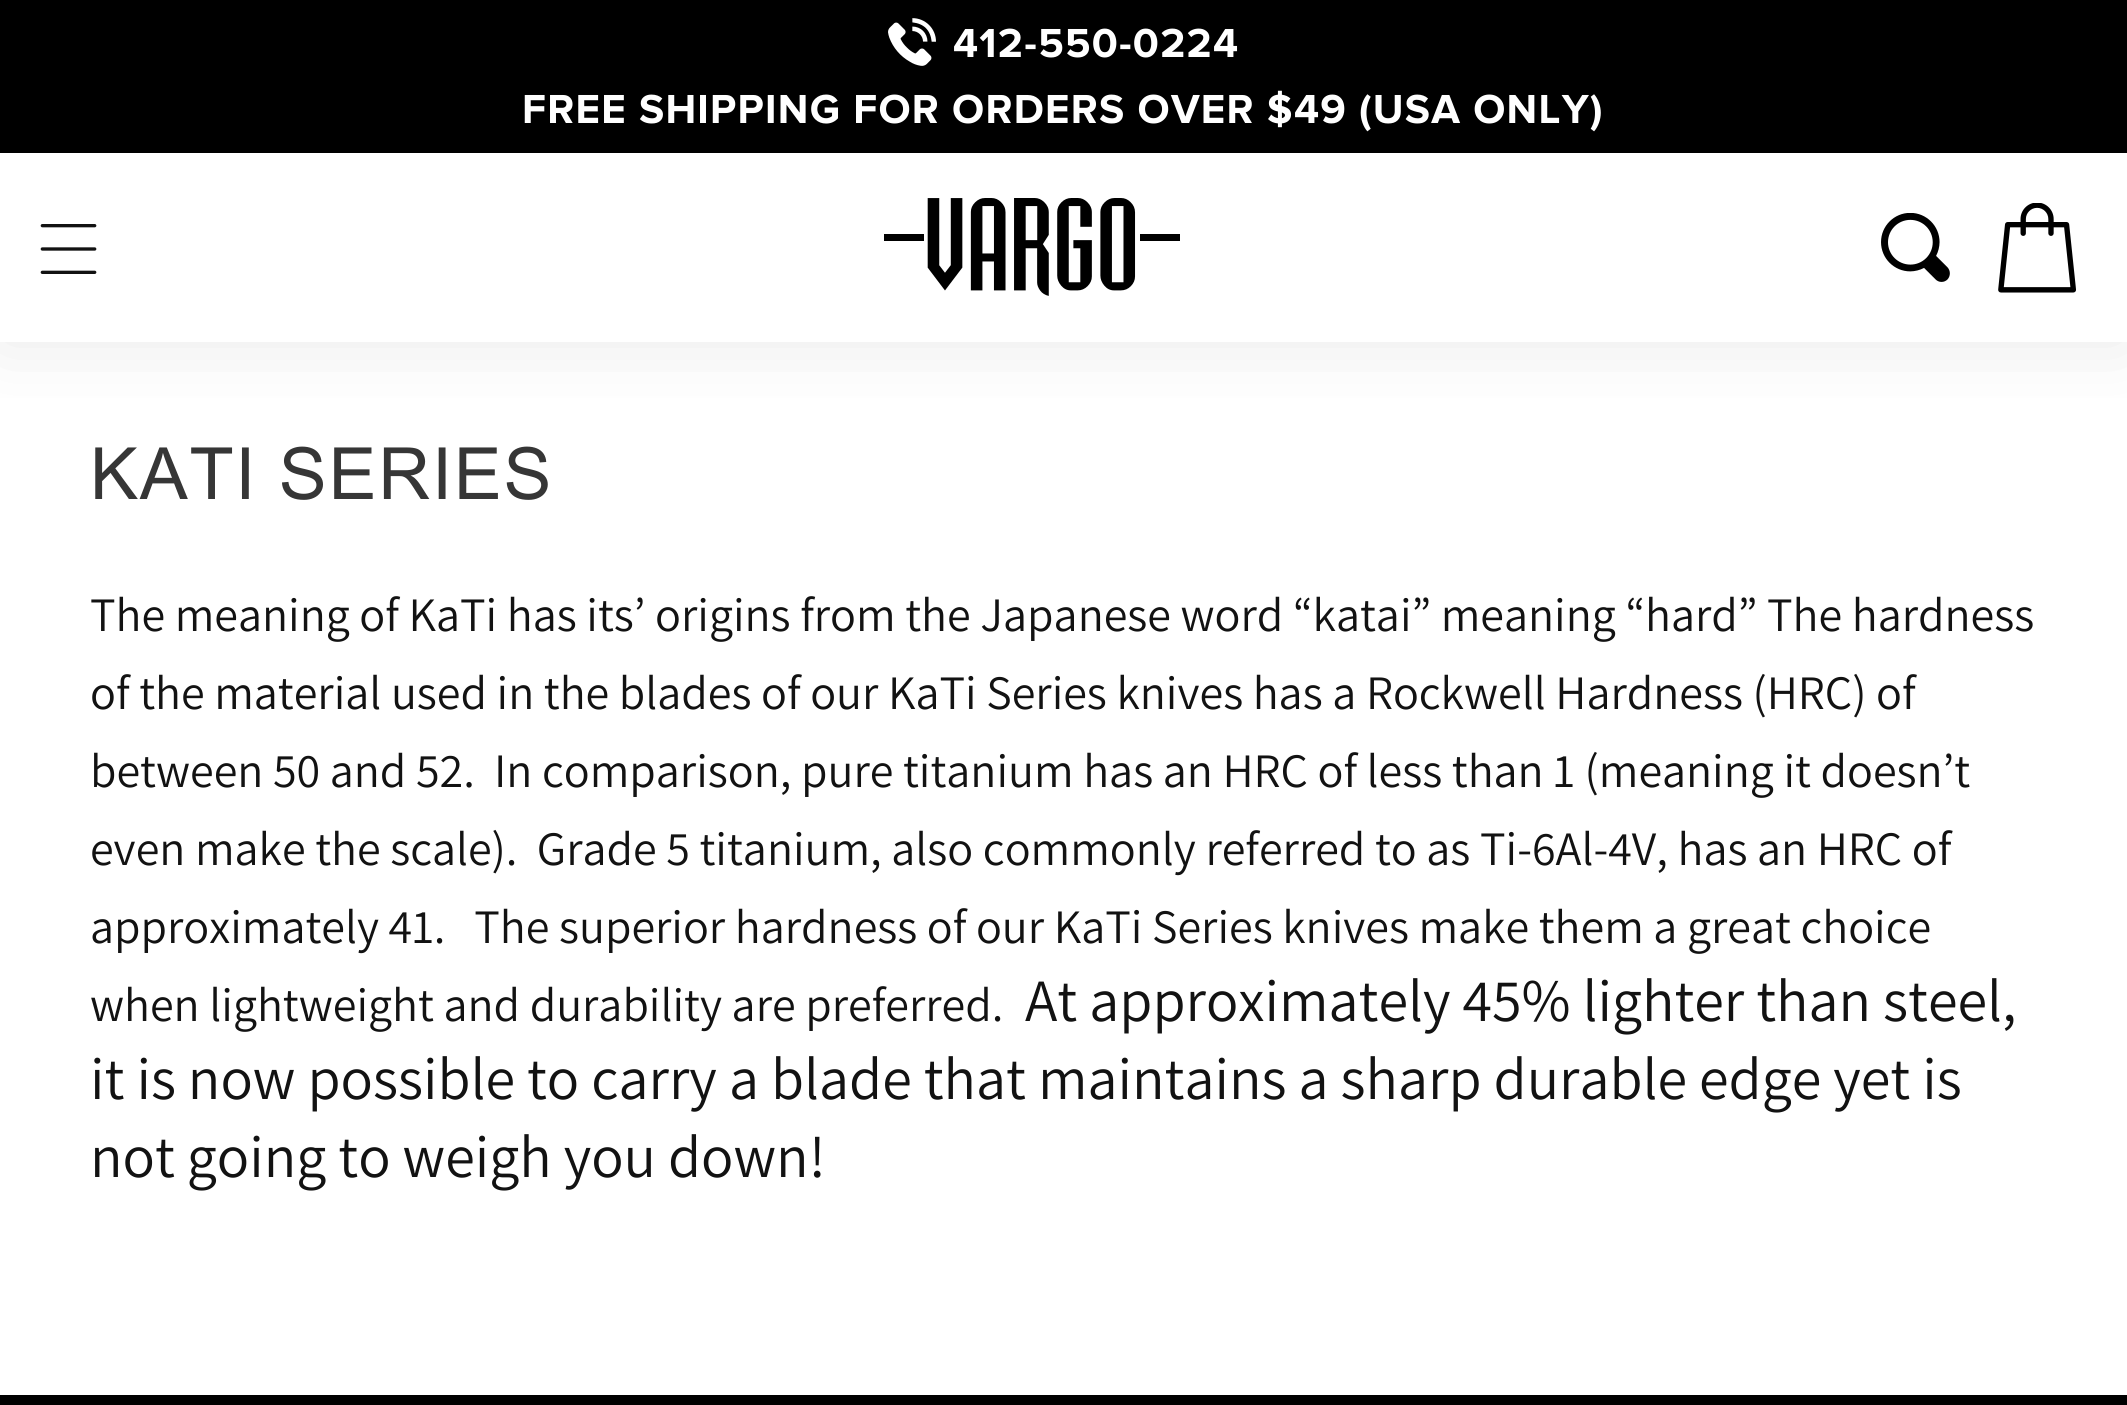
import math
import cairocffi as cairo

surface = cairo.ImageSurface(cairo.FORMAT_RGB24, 2127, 1405)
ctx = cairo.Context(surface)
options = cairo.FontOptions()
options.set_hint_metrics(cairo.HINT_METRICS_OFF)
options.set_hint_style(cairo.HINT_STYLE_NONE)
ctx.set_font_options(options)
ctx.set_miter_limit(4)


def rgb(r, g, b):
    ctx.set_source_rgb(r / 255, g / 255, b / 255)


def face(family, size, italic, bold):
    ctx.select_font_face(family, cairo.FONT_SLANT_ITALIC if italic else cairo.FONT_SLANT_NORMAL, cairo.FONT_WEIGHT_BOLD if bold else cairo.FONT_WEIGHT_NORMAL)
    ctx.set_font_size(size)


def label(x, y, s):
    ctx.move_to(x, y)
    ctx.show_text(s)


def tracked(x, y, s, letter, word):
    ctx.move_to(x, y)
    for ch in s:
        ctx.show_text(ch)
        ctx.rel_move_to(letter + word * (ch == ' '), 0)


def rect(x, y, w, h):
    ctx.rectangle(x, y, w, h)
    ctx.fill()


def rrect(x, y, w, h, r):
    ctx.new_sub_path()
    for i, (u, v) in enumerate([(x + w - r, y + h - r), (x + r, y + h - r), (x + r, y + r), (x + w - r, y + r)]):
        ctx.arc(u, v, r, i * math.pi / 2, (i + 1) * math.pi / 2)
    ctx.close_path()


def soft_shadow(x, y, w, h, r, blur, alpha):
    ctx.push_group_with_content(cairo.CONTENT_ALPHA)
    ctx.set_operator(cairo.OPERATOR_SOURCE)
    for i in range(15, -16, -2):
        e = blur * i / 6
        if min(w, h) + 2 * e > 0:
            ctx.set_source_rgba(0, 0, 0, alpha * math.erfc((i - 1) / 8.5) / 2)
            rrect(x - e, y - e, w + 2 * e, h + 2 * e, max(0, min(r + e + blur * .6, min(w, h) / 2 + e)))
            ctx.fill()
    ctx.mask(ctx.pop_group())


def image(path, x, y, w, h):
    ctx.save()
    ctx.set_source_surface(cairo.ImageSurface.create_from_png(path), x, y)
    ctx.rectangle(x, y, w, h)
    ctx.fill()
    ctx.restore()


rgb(255, 255, 255)
ctx.paint()
ctx.save()
ctx.rectangle(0, 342, 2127, 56)
ctx.clip()
rgb(191, 191, 191)
soft_shadow(0, 153, 2127, 189, 0, 36, 0.34)
ctx.restore()
rgb(0, 0, 0)
rect(0, 0, 2127, 153)
image('image0.png', 888, 18, 48, 48)
face('Proxima Nova', 42, 0, 1)
rgb(255, 255, 255)
tracked(953, 57, '412-550-0224', 1.25, 0)
tracked(522, 123, 'FREE SHIPPING FOR ORDERS OVER $49 (USA ONLY)', 1.25, 0)
image('image1.png', 40, 224, 57, 50)
image('image2.png', 884, 198, 296, 98)
image('image3.png', 1881, 213, 69, 69)
image('image4.png', 1998, 203, 78, 90)
face('Arial', 72, 0, 0)
rgb(54, 54, 54)
tracked(90, 499, 'KATI SERIES', 1.75, 0)
face('Assistant', 48, 0, 0)
rgb(18, 18, 18)
label(90, 631, 'The meaning of KaTi has its’ origins from the Japanese word “katai” meaning “hard” The hardness')
label(90, 709, 'of the material used in the blades of our KaTi Series knives has a Rockwell Hardness (HRC) of')
label(90, 787, 'between 50 and 52.  In comparison, pure titanium has an HRC of less than 1 (meaning it doesn’t')
label(90, 865, 'even make the scale).  Grade 5 titanium, also commonly referred to as Ti-6Al-4V, has an HRC of')
label(90, 943, 'approximately 41.   The superior hardness of our KaTi Series knives make them a great choice')
label(90, 1021, 'when lightweight and durability are preferred.')
face('Assistant', 60, 0, 0)
label(1025, 1021, 'At approximately 45% lighter than steel,')
label(90, 1099, 'it is now possible to carry a blade that maintains a sharp durable edge yet is')
label(90, 1177, 'not going to weigh you down!')
rgb(0, 0, 0)
rect(0, 1395, 2127, 10)
surface.write_to_png('render.png')
